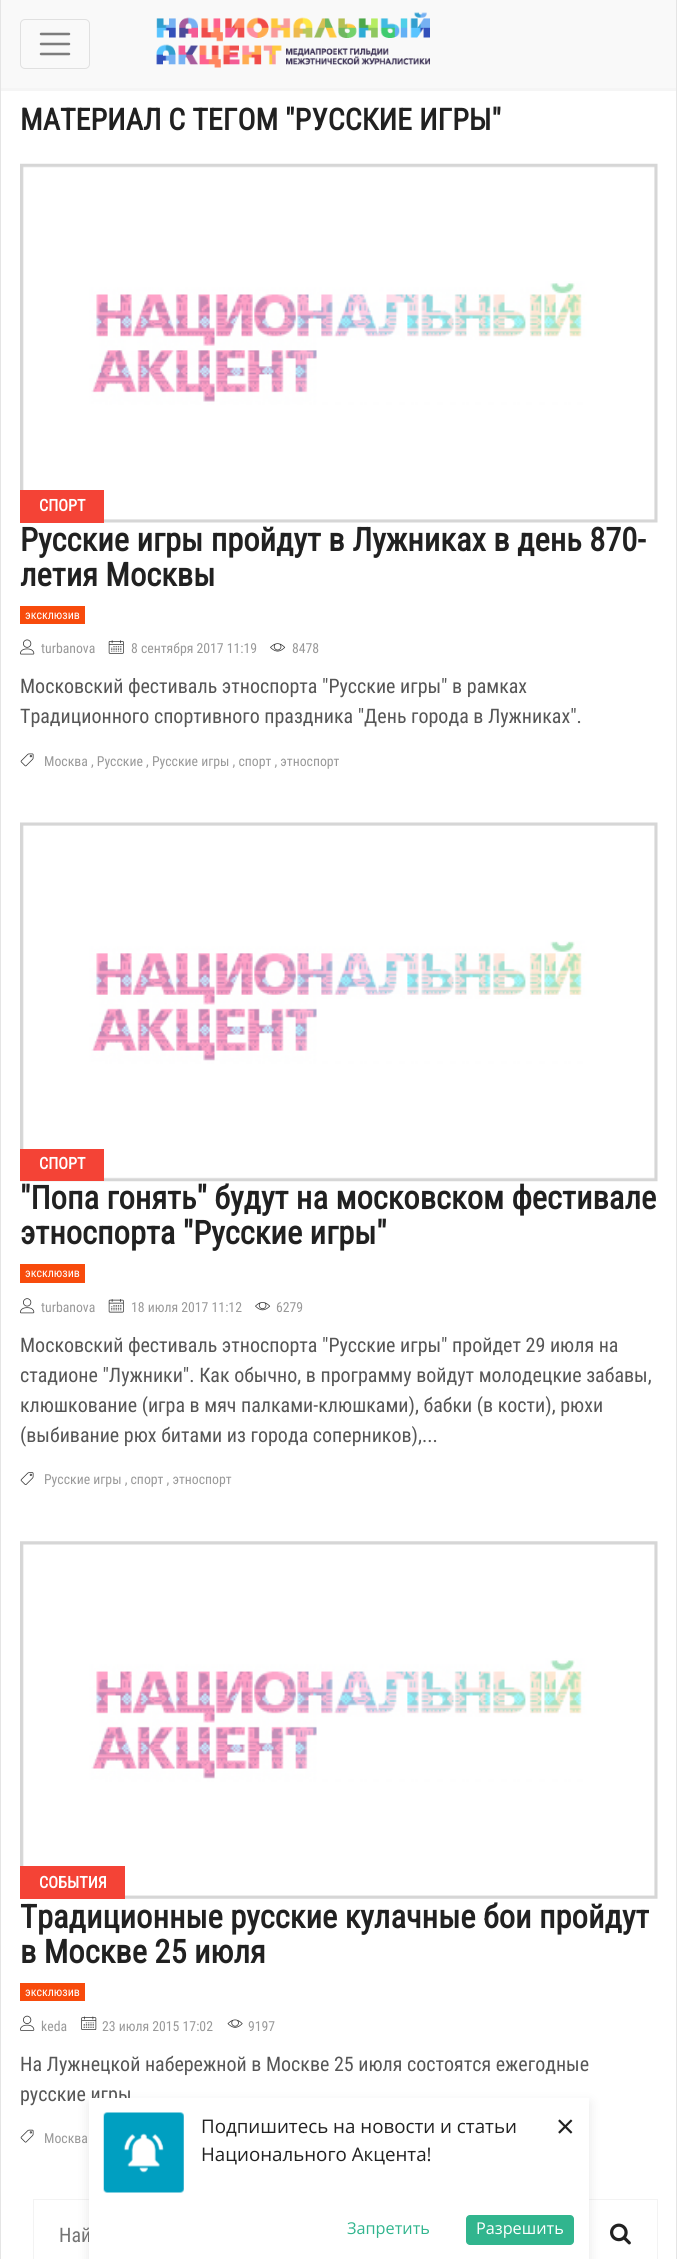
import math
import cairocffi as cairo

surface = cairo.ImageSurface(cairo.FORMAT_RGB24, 677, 2259)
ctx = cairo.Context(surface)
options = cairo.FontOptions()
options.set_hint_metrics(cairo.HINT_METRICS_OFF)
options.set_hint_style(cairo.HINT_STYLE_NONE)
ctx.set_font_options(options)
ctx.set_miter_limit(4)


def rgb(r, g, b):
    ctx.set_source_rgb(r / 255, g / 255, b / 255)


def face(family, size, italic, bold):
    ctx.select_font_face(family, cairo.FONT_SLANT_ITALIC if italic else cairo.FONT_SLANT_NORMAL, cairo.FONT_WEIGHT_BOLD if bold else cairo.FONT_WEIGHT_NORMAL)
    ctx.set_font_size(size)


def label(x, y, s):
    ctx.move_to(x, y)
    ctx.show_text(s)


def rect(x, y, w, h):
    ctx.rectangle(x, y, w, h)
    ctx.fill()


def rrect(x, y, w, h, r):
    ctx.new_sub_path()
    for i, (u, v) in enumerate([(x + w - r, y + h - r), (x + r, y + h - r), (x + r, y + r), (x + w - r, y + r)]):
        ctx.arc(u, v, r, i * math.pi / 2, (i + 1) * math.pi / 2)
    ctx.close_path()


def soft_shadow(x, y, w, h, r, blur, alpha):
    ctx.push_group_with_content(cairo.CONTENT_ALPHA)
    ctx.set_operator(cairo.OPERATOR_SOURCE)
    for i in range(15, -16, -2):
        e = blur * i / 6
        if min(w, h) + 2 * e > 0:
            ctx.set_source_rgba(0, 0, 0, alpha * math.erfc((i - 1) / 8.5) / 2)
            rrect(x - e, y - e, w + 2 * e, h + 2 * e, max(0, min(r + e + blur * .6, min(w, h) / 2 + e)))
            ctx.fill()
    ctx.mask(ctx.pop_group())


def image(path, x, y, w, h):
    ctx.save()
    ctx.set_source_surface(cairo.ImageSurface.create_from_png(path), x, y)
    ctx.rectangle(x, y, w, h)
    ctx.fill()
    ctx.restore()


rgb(255, 255, 255)
ctx.paint()
rgb(229, 229, 229)
rect(676, 0, 1, 2259)
rect(0, 0, 1, 2259)
rgb(249, 249, 249)
rect(1, 0, 675, 88)
rgb(245, 245, 245)
rect(1, 88, 675, 3)
rrect(20.5, 19.5, 69, 49, 4.5)
rgb(224, 224, 224)
ctx.set_line_width(1)
ctx.stroke()
ctx.new_path()
ctx.move_to(41, 34)
ctx.line_to(69, 34)
ctx.move_to(41, 44)
ctx.line_to(69, 44)
ctx.move_to(41, 54)
ctx.line_to(69, 54)
rgb(125, 125, 125)
ctx.set_line_width(2.5)
ctx.set_line_cap(cairo.LINE_CAP_ROUND)
ctx.stroke()
image('image0.png', 156, 12, 274, 56)
face('Roboto Condensed', 30, 0, 1)
rgb(33, 33, 33)
label(20, 130, 'МАТЕРИАЛ С ТЕГОМ "РУССКИЕ ИГРЫ"')
image('image1.png', 20, 163, 638, 360)
rgb(244, 67, 54)
rect(20, 490, 84, 33)
face('Roboto Condensed', 16.25, 0, 1)
rgb(255, 255, 255)
label(39, 511, 'СПОРТ')
face('Roboto Condensed', 32.5, 0, 1)
rgb(33, 33, 33)
label(20, 551, 'Русские игры пройдут в Лужниках в день 870-')
label(20, 586, 'летия Москвы')
rgb(248, 75, 12)
rect(20, 606, 65, 18)
face('Roboto Condensed', 12, 0, 0)
rgb(255, 255, 255)
label(25, 619, 'эксклюзив')
image('image2.png', 20, 639, 15, 16)
face('Roboto Condensed', 13.75, 0, 0)
rgb(153, 153, 153)
label(41, 653, 'turbanova')
image('image3.png', 108, 640, 16, 14)
label(131, 653, '8 сентября 2017 11:19')
image('image4.png', 270, 643, 16, 9)
label(292, 653, '8478')
face('Roboto Condensed', 20, 0, 0)
rgb(86, 86, 86)
label(20, 693, 'Московский фестиваль этноспорта "Русские игры" в рамках')
label(20, 723, 'Традиционного спортивного праздника "День города в Лужниках".')
image('image5.png', 20, 753, 14, 14)
face('Roboto Condensed', 13.75, 0, 0)
rgb(153, 153, 153)
label(44, 766, 'Москва , Русские , Русские игры , спорт , этноспорт')
image('image6.png', 20, 822, 638, 360)
rgb(244, 67, 54)
rect(20, 1149, 84, 32)
face('Roboto Condensed', 16.25, 0, 1)
rgb(255, 255, 255)
label(39, 1169, 'СПОРТ')
face('Roboto Condensed', 32.5, 0, 1)
rgb(33, 33, 33)
label(20, 1209, '"Попа гонять" будут на московском фестивале')
label(20, 1244, 'этноспорта "Русские игры"')
rgb(248, 75, 12)
rect(20, 1264, 65, 19)
face('Roboto Condensed', 12, 0, 0)
rgb(255, 255, 255)
label(25, 1277, 'эксклюзив')
image('image7.png', 20, 1298, 15, 16)
face('Roboto Condensed', 13.75, 0, 0)
rgb(153, 153, 153)
label(41, 1312, 'turbanova')
image('image8.png', 108, 1299, 16, 14)
label(131, 1312, '18 июля 2017 11:12')
image('image9.png', 255, 1302, 16, 9)
label(276, 1312, '6279')
face('Roboto Condensed', 20, 0, 0)
rgb(86, 86, 86)
label(20, 1352, 'Московский фестиваль этноспорта "Русские игры" пройдет 29 июля на')
label(20, 1382, 'стадионе "Лужники". Как обычно, в программу войдут молодецкие забавы,')
label(20, 1412, 'клюшкование (игра в мяч палками-клюшками), бабки (в кости), рюхи')
label(20, 1442, '(выбивание рюх битами из города соперников),...')
image('image10.png', 20, 1472, 14, 13)
face('Roboto Condensed', 13.75, 0, 0)
rgb(153, 153, 153)
label(44, 1484, 'Русские игры , спорт , этноспорт')
image('image11.png', 20, 1541, 638, 358)
rgb(244, 67, 54)
rect(20, 1866, 105, 33)
face('Roboto Condensed', 16.25, 0, 1)
rgb(255, 255, 255)
label(39, 1888, 'СОБЫТИЯ')
face('Roboto Condensed', 32.5, 0, 1)
rgb(33, 33, 33)
label(20, 1928, 'Традиционные русские кулачные бои пройдут')
label(20, 1963, 'в Москве 25 июля')
rgb(248, 75, 12)
rect(20, 1983, 65, 18)
face('Roboto Condensed', 12, 0, 0)
rgb(255, 255, 255)
label(25, 1996, 'эксклюзив')
image('image12.png', 20, 2015, 15, 16)
face('Roboto Condensed', 13.75, 0, 0)
rgb(153, 153, 153)
label(41, 2031, 'keda')
image('image13.png', 81, 2016, 16, 14)
label(102, 2031, '23 июля 2015 17:02')
image('image14.png', 227, 2019, 16, 9)
label(248, 2031, '9197')
face('Roboto Condensed', 20, 0, 0)
rgb(86, 86, 86)
label(20, 2071, 'На Лужнецкой набережной в Москве 25 июля состоятся ежегодные')
label(20, 2101, 'русские игры')
image('image15.png', 20, 2129, 14, 14)
face('Roboto Condensed', 13.75, 0, 0)
rgb(153, 153, 153)
label(44, 2143, 'Москва')
ctx.rectangle(33.5, 2199.5, 624, 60)
rgb(243, 243, 243)
ctx.set_line_width(1)
ctx.set_line_cap(cairo.LINE_CAP_BUTT)
ctx.stroke()
face('Roboto Condensed', 20, 0, 0)
rgb(117, 117, 117)
label(59, 2242, 'Най')
image('image16.png', 610, 2223, 21, 22)
rgb(0, 0, 0)
soft_shadow(89, 2103, 500, 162, 0, 6, 0.1)
rgb(255, 255, 255)
rect(89, 2098, 500, 161)
image('image17.png', 103, 2112, 81, 81)
face('Open Sans', 18.75, 0, 0)
rgb(33, 33, 33)
label(201, 2133, 'Подпишитесь на новости и статьи')
label(201, 2161, 'Национального Акцента!')
face('Open Sans', 16.25, 0, 0)
rgb(49, 181, 142)
label(347, 2234, 'Запретить')
rrect(466, 2215, 108, 30, 4)
ctx.fill()
rgb(255, 255, 255)
label(476, 2234, 'Разрешить')
face('Open Sans', 32.5, 0, 0)
rgb(33, 33, 33)
label(556, 2138, '×')
surface.write_to_png('render.png')
